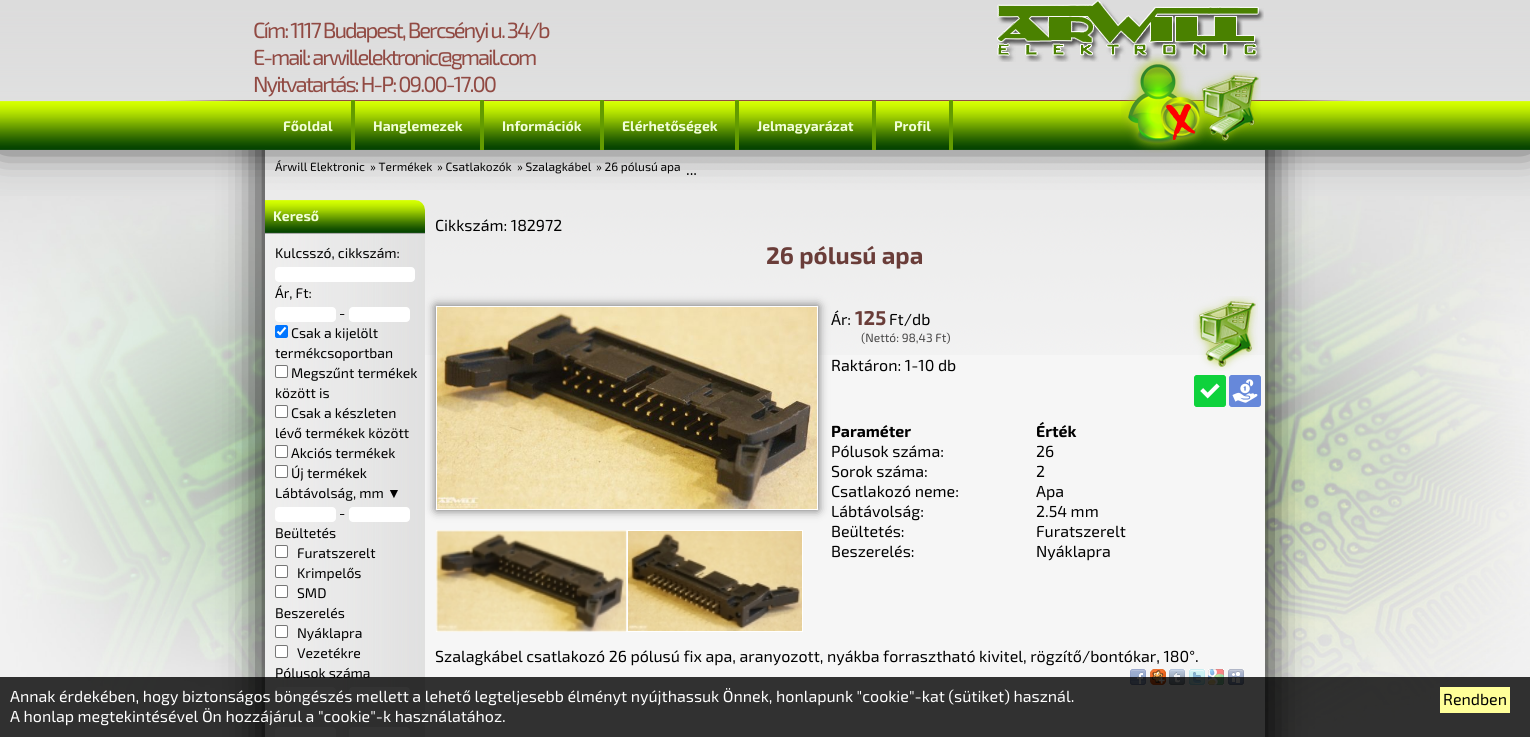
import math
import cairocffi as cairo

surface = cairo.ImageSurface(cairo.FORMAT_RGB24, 1530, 737)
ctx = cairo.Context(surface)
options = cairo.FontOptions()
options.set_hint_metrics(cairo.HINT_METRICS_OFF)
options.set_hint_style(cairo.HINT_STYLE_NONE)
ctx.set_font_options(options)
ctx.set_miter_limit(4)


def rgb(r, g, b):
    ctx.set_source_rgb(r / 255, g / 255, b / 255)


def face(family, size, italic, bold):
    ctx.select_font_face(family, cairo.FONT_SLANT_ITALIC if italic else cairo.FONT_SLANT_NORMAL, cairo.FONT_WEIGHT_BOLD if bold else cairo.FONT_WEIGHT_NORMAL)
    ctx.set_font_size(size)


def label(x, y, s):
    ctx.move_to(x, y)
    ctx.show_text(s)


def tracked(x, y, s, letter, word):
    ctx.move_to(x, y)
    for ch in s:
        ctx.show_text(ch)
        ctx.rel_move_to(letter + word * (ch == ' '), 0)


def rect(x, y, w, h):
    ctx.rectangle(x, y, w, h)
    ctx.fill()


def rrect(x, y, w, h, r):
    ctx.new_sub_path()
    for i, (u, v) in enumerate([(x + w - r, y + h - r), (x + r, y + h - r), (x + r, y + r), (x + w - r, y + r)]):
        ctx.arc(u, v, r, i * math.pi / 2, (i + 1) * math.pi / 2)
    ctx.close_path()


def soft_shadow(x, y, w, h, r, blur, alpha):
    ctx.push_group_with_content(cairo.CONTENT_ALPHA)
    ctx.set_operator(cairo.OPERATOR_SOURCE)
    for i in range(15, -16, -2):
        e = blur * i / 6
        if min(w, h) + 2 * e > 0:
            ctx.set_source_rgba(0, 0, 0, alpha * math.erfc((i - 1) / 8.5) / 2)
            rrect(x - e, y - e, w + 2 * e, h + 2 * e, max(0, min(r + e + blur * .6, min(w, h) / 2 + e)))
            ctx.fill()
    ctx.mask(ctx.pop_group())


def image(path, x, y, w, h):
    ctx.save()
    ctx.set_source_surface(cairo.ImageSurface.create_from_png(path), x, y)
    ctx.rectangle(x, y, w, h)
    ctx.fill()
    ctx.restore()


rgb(242, 242, 242)
ctx.paint()
image('image0.png', 0, 150, 1530, 288)
image('image8.png', 0, 196, 265, 533)
image('image24.png', 1265, 196, 265, 535)
rgb(0, 0, 0)
soft_shadow(265, 0, 1000, 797, 0, 20, 1)
image('image9.png', 265, 150, 1000, 205)
image('image10.png', 265, 200, 160, 34)
soft_shadow(0, -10, 1530, 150, 0, 20, 1)
image('image1.png', 0, 0, 1530, 150)
face('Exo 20', 22, 0, 0)
rgb(145, 74, 67)
tracked(253, 38, 'Cím: 1117 Budapest, Bercsényi u. 34/b', -2, 0)
tracked(253, 65, 'E-mail: arwillelektronic@gmail.com', -2.05, 0)
tracked(253, 92, 'Nyitvatartás: H-P: 09.00-17.00', -2, 0)
image('image2.png', 997, 0, 267, 62)
image('image3.png', 997, 0, 267, 62)
image('image4.png', 166, 100, 99, 1)
rect(265, 100, 1000, 1)
image('image6.png', 1196, 70, 65, 74)
image('image5.png', 1121, 53, 89, 100)
image('image7.png', 1265, 100, 99, 1)
rgb(99, 155, 0)
rect(351, 100, 4, 50)
face('Exo 20', 14, 0, 1)
rgb(241, 254, 215)
label(283, 131, 'Főoldal')
rgb(99, 155, 0)
rect(480, 100, 4, 50)
rgb(241, 254, 215)
label(373, 131, 'Hanglemezek')
rgb(99, 155, 0)
rect(600, 100, 4, 50)
rgb(241, 254, 215)
label(502, 131, 'Információk')
rgb(99, 155, 0)
rect(735, 100, 4, 50)
rgb(241, 254, 215)
label(622, 131, 'Elérhetőségek')
rgb(99, 155, 0)
rect(872, 100, 4, 50)
rgb(241, 254, 215)
label(757, 131, 'Jelmagyarázat')
rgb(99, 155, 0)
rect(949, 100, 4, 50)
rgb(241, 254, 215)
label(894, 131, 'Profil')
rgb(246, 246, 246)
rect(425, 355, 840, 382)
face('Exo 20', 12, 0, 0)
rgb(0, 0, 0)
label(275, 171, 'Árwill Elektronic')
label(370, 171, '» Termékek')
label(437, 171, '» Csatlakozók')
label(517, 171, '» Szalagkábel')
label(596, 171, '» 26 pólusú apa')
face('Exo 20', 16, 0, 0)
label(686, 175, '...')
face('Exo 20', 14, 0, 1)
rgb(241, 254, 215)
label(273, 221, 'Kereső')
rgb(102, 102, 102)
soft_shadow(436, 306, 382, 204, 0, 5, 1)
image('image11.png', 265, 234, 160, 503)
face('Exo 20', 14, 0, 0)
rgb(0, 0, 0)
label(275, 258, 'Kulcsszó, cikkszám:')
rgb(255, 255, 255)
rrect(275, 267, 140, 15, 4)
ctx.fill()
rgb(0, 0, 0)
label(275, 298, 'Ár, Ft:')
rgb(255, 255, 255)
rrect(275, 307, 61, 15, 4)
ctx.fill()
rgb(0, 0, 0)
label(339, 318, '-')
rgb(255, 255, 255)
rrect(349, 307, 61, 15, 4)
ctx.fill()
rgb(0, 117, 255)
rrect(275, 325, 13, 13, 2)
ctx.fill()
ctx.new_path()
ctx.move_to(277.5, 331.5)
ctx.line_to(280, 334)
ctx.line_to(285.5, 327.5)
rgb(255, 255, 255)
ctx.set_line_width(2.1)
ctx.stroke()
rgb(0, 0, 0)
label(291, 338, 'Csak a kijelölt')
label(275, 358, 'termékcsoportban')
rgb(255, 255, 255)
rrect(275.5, 365.5, 12, 12, 1.5)
ctx.fill_preserve()
rgb(118, 118, 118)
ctx.set_line_width(1)
ctx.stroke()
rgb(0, 0, 0)
label(291, 378, 'Megszűnt termékek')
label(275, 398, 'között is')
rgb(255, 255, 255)
rrect(275.5, 405.5, 12, 12, 1.5)
ctx.fill_preserve()
rgb(118, 118, 118)
ctx.stroke()
rgb(0, 0, 0)
label(291, 418, 'Csak a készleten')
label(275, 438, 'lévő termékek között')
rgb(255, 255, 255)
rrect(275.5, 445.5, 12, 12, 1.5)
ctx.fill_preserve()
rgb(118, 118, 118)
ctx.stroke()
rgb(0, 0, 0)
label(291, 458, 'Akciós termékek')
rgb(255, 255, 255)
rrect(275.5, 465.5, 12, 12, 1.5)
ctx.fill_preserve()
rgb(118, 118, 118)
ctx.stroke()
rgb(0, 0, 0)
label(291, 478, 'Új termékek')
label(275, 498, 'Lábtávolság, mm')
face('Liberation Sans', 14, 0, 0)
label(387, 498, '▼')
rgb(255, 255, 255)
rrect(275, 507, 61, 15, 4)
ctx.fill()
face('Exo 20', 14, 0, 0)
rgb(0, 0, 0)
label(339, 518, '-')
rgb(255, 255, 255)
rrect(349, 507, 61, 15, 4)
ctx.fill()
rgb(0, 0, 0)
label(275, 538, 'Beültetés')
rgb(255, 255, 255)
rrect(275.5, 545.5, 12, 12, 1.5)
ctx.fill_preserve()
rgb(118, 118, 118)
ctx.stroke()
rgb(0, 0, 0)
label(297, 558, 'Furatszerelt')
rgb(255, 255, 255)
rrect(275.5, 565.5, 12, 12, 1.5)
ctx.fill_preserve()
rgb(118, 118, 118)
ctx.stroke()
rgb(0, 0, 0)
label(297, 578, 'Krimpelős')
rgb(255, 255, 255)
rrect(275.5, 585.5, 12, 12, 1.5)
ctx.fill_preserve()
rgb(118, 118, 118)
ctx.stroke()
rgb(0, 0, 0)
label(297, 598, 'SMD')
label(275, 618, 'Beszerelés')
rgb(255, 255, 255)
rrect(275.5, 625.5, 12, 12, 1.5)
ctx.fill_preserve()
rgb(118, 118, 118)
ctx.stroke()
rgb(0, 0, 0)
label(297, 638, 'Nyáklapra')
rgb(255, 255, 255)
rrect(275.5, 645.5, 12, 12, 1.5)
ctx.fill_preserve()
rgb(118, 118, 118)
ctx.stroke()
rgb(0, 0, 0)
label(297, 658, 'Vezetékre')
label(275, 678, 'Pólusok száma')
rgb(255, 255, 255)
rrect(275, 687, 61, 15, 4)
ctx.fill()
rrect(349, 687, 61, 15, 4)
ctx.fill()
rrect(275, 727, 61, 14, 4)
ctx.fill()
rrect(349, 727, 61, 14, 4)
ctx.fill()
face('Exo 20', 16, 0, 0)
rgb(0, 0, 0)
label(435, 231, 'Cikkszám: 182972')
face('Exo 20', 24, 0, 1)
rgb(106, 61, 57)
label(766, 264, '26 pólusú apa')
ctx.rectangle(436.5, 306.5, 381, 203)
rgb(255, 255, 255)
ctx.stroke()
image('image12.png', 437, 307, 380, 202)
ctx.rectangle(436.5, 530.5, 190, 101)
ctx.stroke()
image('image13.png', 436, 530, 191, 102)
ctx.rectangle(627.5, 530.5, 175, 101)
ctx.stroke()
image('image14.png', 628, 531, 174, 100)
face('Exo 20', 16, 0, 0)
rgb(0, 0, 0)
label(831, 325, 'Ár:')
face('Exo 20', 20, 0, 1)
rgb(106, 61, 57)
label(855, 325, '125')
face('Exo 20', 16, 0, 0)
rgb(0, 0, 0)
label(889, 325, 'Ft/db')
face('Exo 20', 12, 0, 0)
rgb(68, 67, 67)
label(861, 342, '(Nettó: 98,43 Ft)')
face('Exo 20', 16, 0, 0)
rgb(0, 0, 0)
label(831, 371, 'Raktáron: 1-10 db')
image('image15.png', 1193, 296, 65, 75)
image('image16.png', 1194, 375, 32, 32)
image('image17.png', 1229, 375, 32, 32)
face('Exo 20', 16, 0, 1)
label(831, 437, 'Paraméter')
label(1036, 437, 'Érték')
face('Exo 20', 16, 0, 0)
label(831, 457, 'Pólusok száma:')
label(1036, 457, '26')
label(831, 477, 'Sorok száma:')
label(1036, 477, '2')
label(831, 497, 'Csatlakozó neme:')
label(1036, 497, 'Apa')
label(831, 517, 'Lábtávolság:')
label(1036, 517, '2.54 mm')
label(831, 537, 'Beültetés:')
label(1036, 537, 'Furatszerelt')
label(831, 557, 'Beszerelés:')
label(1036, 557, 'Nyáklapra')
label(435, 662, 'Szalagkábel csatlakozó 26 pólusú fix apa, aranyozott, nyákba forrasztható kivitel, rögzítő/bontókar, 180°.')
image('image18.png', 1130, 669, 16, 16)
image('image19.png', 1150, 669, 16, 16)
image('image20.png', 1169, 669, 16, 16)
image('image21.png', 1189, 669, 16, 16)
image('image22.png', 1208, 669, 16, 16)
image('image23.png', 1228, 669, 16, 16)
ctx.set_source_rgba(0, 0, 0, 0.8)
rect(0, 677, 1530, 60)
rgb(255, 255, 255)
label(10, 702, 'Annak érdekében, hogy biztonságos böngészés mellett a lehető legteljesebb élményt nyújthassuk Önnek, honlapunk "cookie"-kat (sütiket) használ.')
label(10, 722, 'A honlap megtekintésével Ön hozzájárul a "cookie"-k használatához.')
rgb(255, 255, 153)
rect(1440, 687, 70, 26)
rgb(0, 0, 0)
label(1443, 705, 'Rendben')
surface.write_to_png('render.png')
